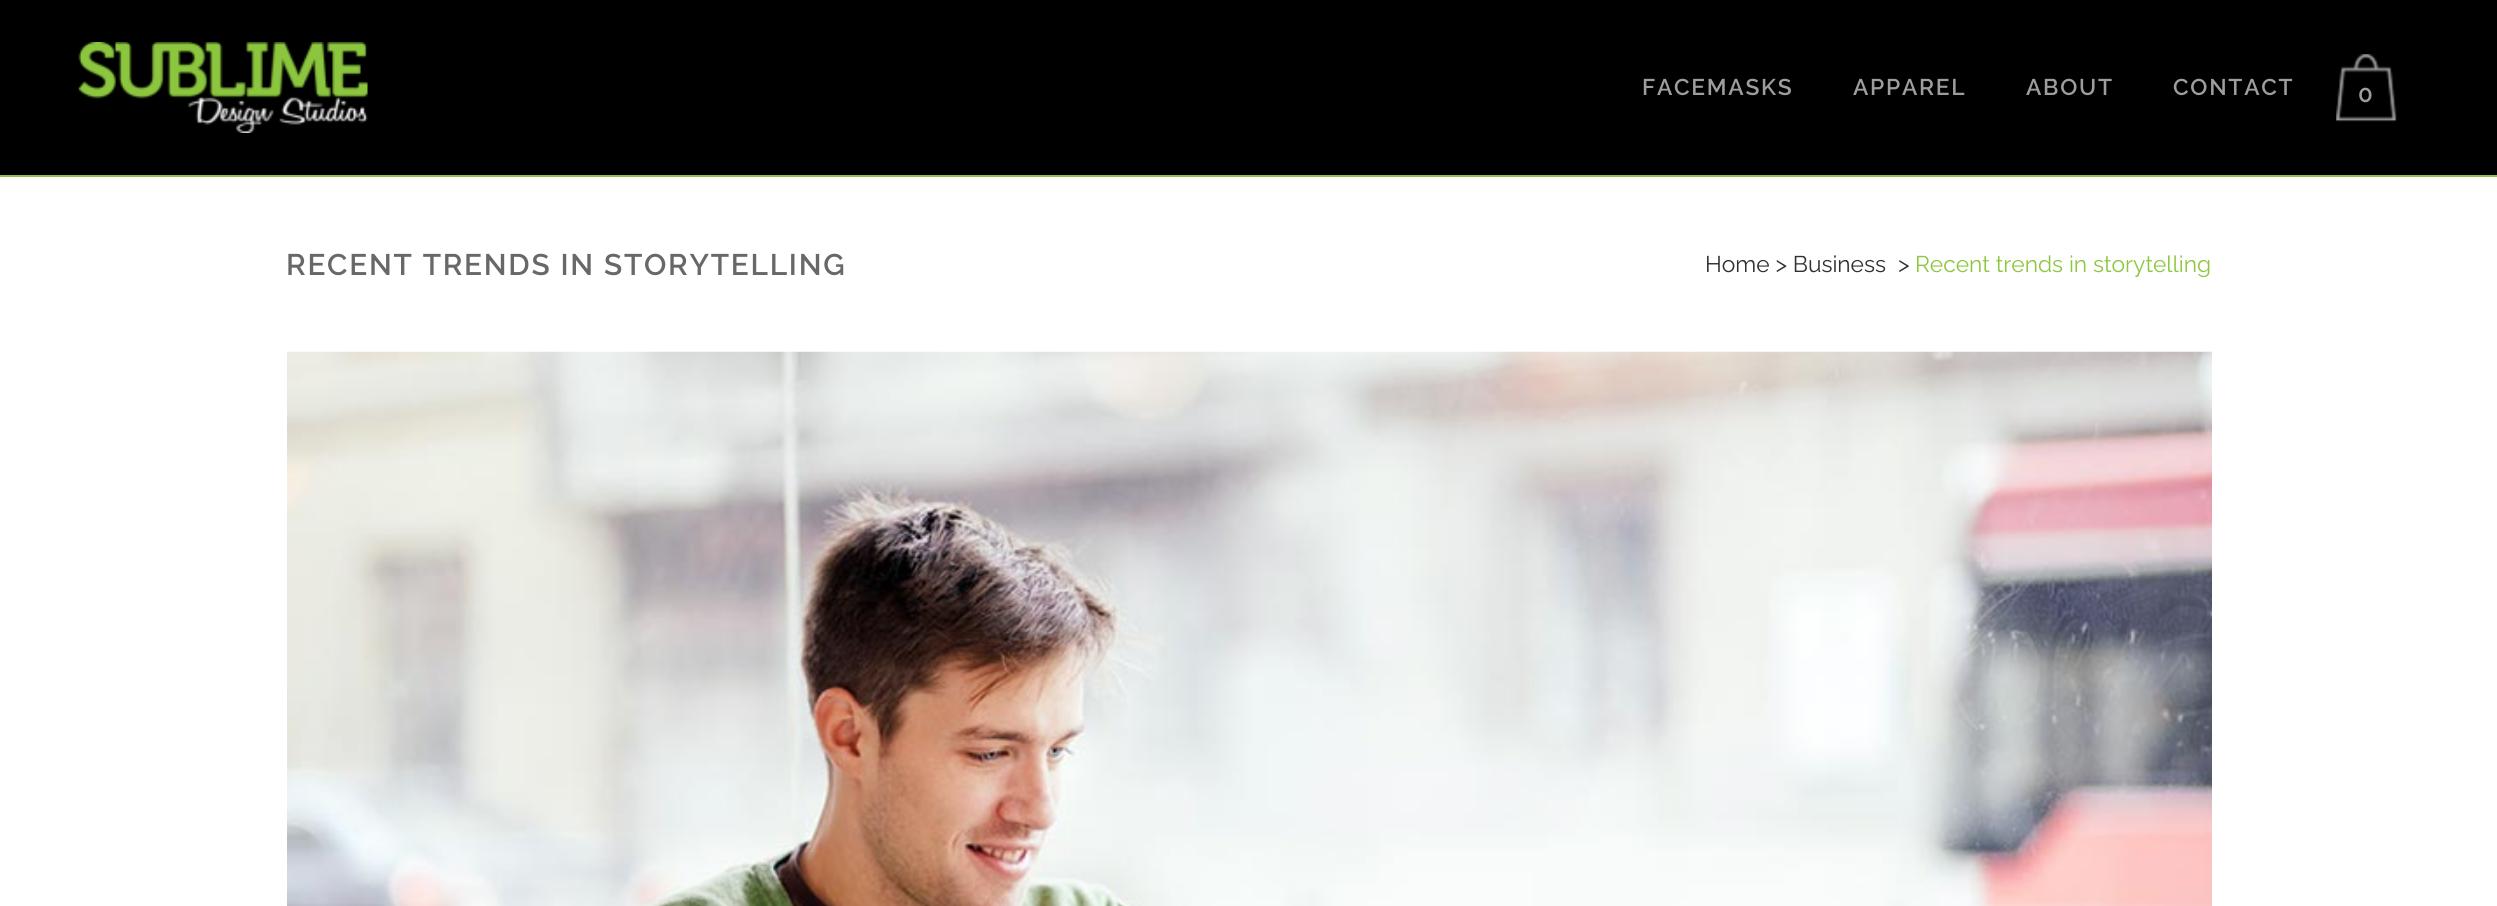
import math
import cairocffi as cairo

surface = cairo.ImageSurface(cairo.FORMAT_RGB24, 2497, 906)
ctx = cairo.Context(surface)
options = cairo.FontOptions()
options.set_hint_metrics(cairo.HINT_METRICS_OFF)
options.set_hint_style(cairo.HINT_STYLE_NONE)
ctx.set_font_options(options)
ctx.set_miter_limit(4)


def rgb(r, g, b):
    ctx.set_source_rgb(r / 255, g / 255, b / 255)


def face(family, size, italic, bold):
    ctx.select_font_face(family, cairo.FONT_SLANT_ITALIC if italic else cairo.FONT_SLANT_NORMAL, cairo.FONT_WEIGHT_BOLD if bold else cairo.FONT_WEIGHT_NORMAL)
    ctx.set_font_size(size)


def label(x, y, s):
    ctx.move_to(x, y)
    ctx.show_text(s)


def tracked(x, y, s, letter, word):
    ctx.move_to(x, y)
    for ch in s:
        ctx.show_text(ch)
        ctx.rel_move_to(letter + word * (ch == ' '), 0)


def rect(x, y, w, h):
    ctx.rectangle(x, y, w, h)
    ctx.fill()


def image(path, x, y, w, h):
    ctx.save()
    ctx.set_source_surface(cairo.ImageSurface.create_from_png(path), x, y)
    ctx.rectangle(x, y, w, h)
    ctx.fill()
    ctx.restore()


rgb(255, 255, 255)
ctx.paint()
rgb(0, 0, 0)
rect(0, 0, 2497, 175)
rgb(141, 198, 63)
rect(0, 175, 2497, 2)
image('image0.png', 78, 42, 290, 91)
face('Raleway SemiBold', 22.75, 0, 0)
rgb(157, 157, 157)
tracked(1642, 95, 'FACEMASKS', 1.75, 0)
tracked(1853, 95, 'APPAREL', 1.75, 0)
tracked(2026, 95, 'ABOUT', 1.75, 0)
tracked(2173, 95, 'CONTACT', 1.75, 0)
image('image1.png', 2336, 54, 61, 68)
face('Raleway SemiBold', 24, 0, 0)
label(2358, 102, '0')
face('Raleway SemiBold', 29.75, 0, 0)
rgb(104, 104, 104)
tracked(286, 275, 'RECENT TRENDS IN STORYTELLING', 1.75, 0)
face('Raleway', 22.75, 0, 0)
rgb(48, 48, 48)
label(1705, 272, 'Home > Business')
label(1898, 272, '>')
rgb(141, 198, 63)
label(1915, 272, 'Recent trends in storytelling')
image('image2.png', 287, 351, 1925, 555)
surface.write_to_png('render.png')
